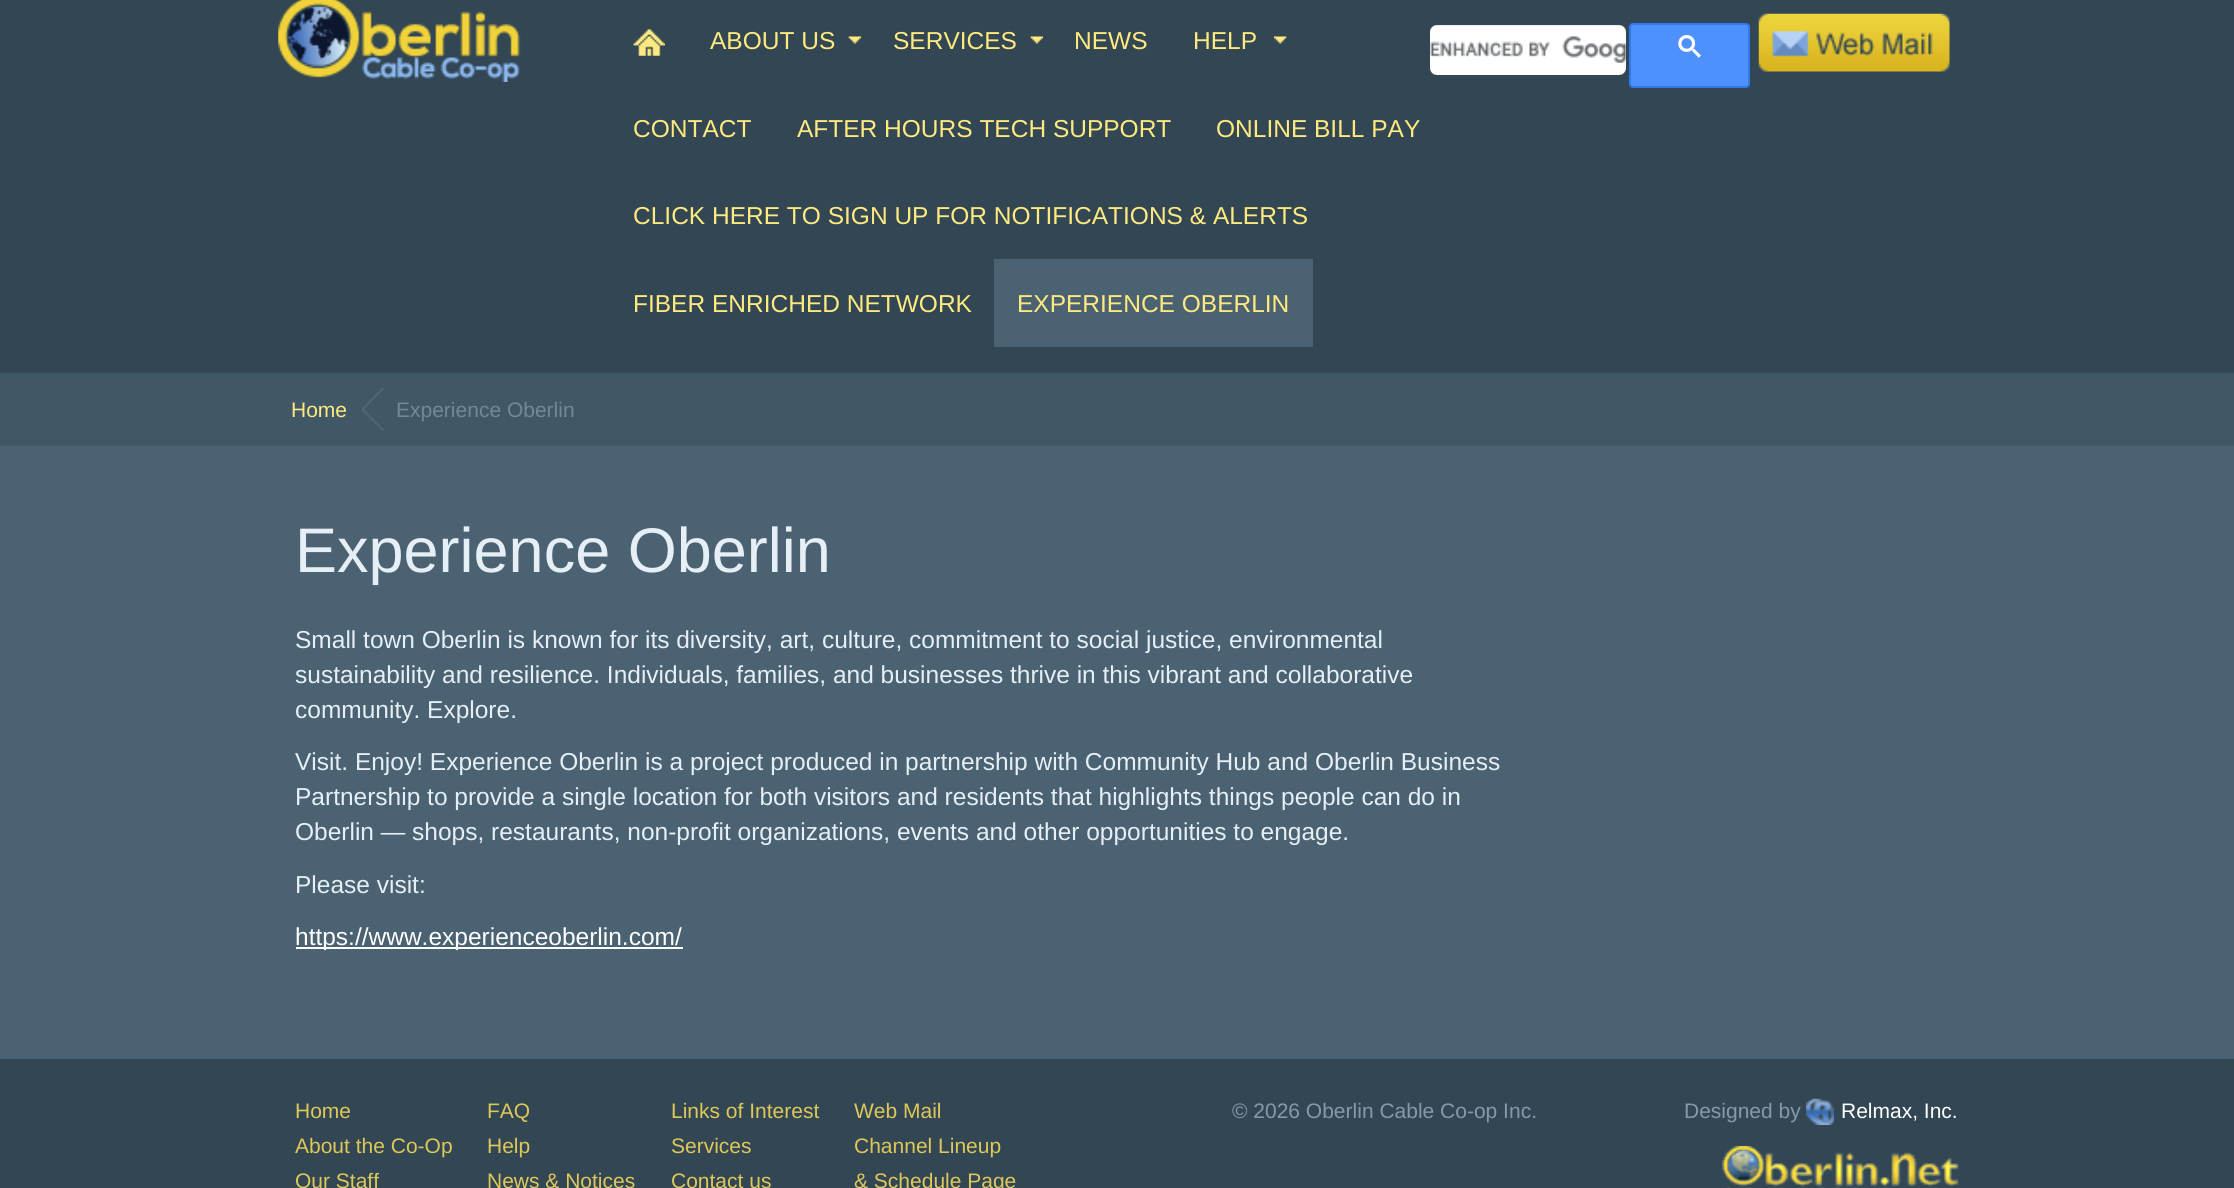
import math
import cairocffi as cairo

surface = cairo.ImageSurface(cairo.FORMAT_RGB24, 2234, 1188)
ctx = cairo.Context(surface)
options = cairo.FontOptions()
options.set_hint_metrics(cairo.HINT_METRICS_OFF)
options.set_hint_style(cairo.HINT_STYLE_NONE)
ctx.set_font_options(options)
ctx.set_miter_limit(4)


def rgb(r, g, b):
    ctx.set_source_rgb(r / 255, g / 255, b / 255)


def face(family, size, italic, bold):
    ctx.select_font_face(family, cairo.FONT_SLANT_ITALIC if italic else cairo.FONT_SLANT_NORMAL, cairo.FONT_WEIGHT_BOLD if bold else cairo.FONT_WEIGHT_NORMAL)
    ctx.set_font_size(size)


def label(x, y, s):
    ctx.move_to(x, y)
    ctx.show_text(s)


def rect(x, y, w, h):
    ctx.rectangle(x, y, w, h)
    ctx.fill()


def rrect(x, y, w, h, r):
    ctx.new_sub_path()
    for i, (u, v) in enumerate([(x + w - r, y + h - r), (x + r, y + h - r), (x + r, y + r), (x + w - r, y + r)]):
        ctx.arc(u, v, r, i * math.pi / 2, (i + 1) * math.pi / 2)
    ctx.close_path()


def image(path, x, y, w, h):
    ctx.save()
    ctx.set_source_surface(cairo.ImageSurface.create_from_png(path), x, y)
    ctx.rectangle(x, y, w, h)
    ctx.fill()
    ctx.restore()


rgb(75, 98, 115)
ctx.paint()
rgb(50, 70, 84)
rect(0, 0, 2234, 373)
image('image0.png', 278, 0, 243, 82)
image('image1.png', 633, 29, 32, 27)
image('image2.png', 848, 36, 13, 8)
face('Liberation Sans', 24.5, 0, 0)
rgb(255, 234, 128)
label(710, 49, 'ABOUT US')
image('image2.png', 1030, 36, 13, 8)
label(893, 49, 'SERVICES')
label(1074, 49, 'NEWS')
image('image3.png', 1274, 36, 13, 8)
label(1193, 49, 'HELP')
label(633, 137, 'CONTACT')
label(797, 137, 'AFTER HOURS TECH SUPPORT')
label(1216, 137, 'ONLINE BILL PAY')
label(633, 224, 'CLICK HERE TO SIGN UP FOR NOTIFICATIONS & ALERTS')
label(633, 312, 'FIBER ENRICHED NETWORK')
rgb(75, 98, 115)
rect(994, 259, 319, 88)
rgb(255, 234, 128)
label(1017, 312, 'EXPERIENCE OBERLIN')
rgb(255, 255, 255)
rrect(1430, 25, 196, 50, 7)
ctx.fill()
image('image4.png', 1430, 36, 196, 27)
ctx.set_source_rgba(0, 0, 0, 0.07)
ctx.new_path()
ctx.move_to(1437, 26)
ctx.line_to(1619, 26)
ctx.curve_to(1623, 26, 1626, 29, 1626, 33)
ctx.line_to(1626, 32)
ctx.curve_to(1626, 28, 1623, 25, 1619, 25)
ctx.line_to(1437, 25)
ctx.curve_to(1433, 25, 1430, 28, 1430, 32)
ctx.line_to(1430, 33)
ctx.curve_to(1430, 29, 1433, 26, 1437, 26)
ctx.close_path()
ctx.fill()
rgb(77, 144, 254)
rrect(1630, 24, 119, 63, 3)
ctx.fill_preserve()
rgb(48, 121, 237)
ctx.stroke()
image('image5.png', 1678, 35, 23, 23)
image('image6.png', 1758, 13, 192, 59)
rgb(64, 87, 102)
rect(0, 373, 2234, 73)
image('image7.png', 362, 388, 22, 43)
face('Liberation Sans', 21, 0, 0)
rgb(255, 234, 128)
label(291, 417, 'Home')
rgb(114, 136, 152)
label(396, 417, 'Experience Oberlin')
face('Liberation Sans', 63, 0, 0)
rgb(230, 239, 245)
label(295, 572, 'Experience Oberlin')
face('Liberation Sans', 24.5, 0, 0)
label(295, 648, 'Small town Oberlin is known for its diversity, art, culture, commitment to social justice, environmental')
label(295, 683, 'sustainability and resilience. Individuals, families, and businesses thrive in this vibrant and collaborative')
label(295, 718, 'community. Explore.')
label(295, 770, 'Visit. Enjoy! Experience Oberlin is a project produced in partnership with Community Hub and Oberlin Business')
label(295, 805, 'Partnership to provide a single location for both visitors and residents that highlights things people can do in')
label(295, 840, 'Oberlin — shops, restaurants, non-profit organizations, events and other opportunities to engage.')
label(295, 893, 'Please visit:')
rgb(255, 255, 255)
rect(296, 947, 387, 2)
label(295, 945, 'https://www.experienceoberlin.com/')
rgb(50, 70, 84)
rect(0, 1059, 2234, 129)
face('Liberation Sans', 21, 0, 0)
rgb(222, 200, 89)
label(295, 1118, 'Home')
label(295, 1153, 'About the Co-Op')
label(295, 1188, 'Our Staff')
label(487, 1118, 'FAQ')
label(487, 1153, 'Help')
label(487, 1188, 'News & Notices')
label(671, 1118, 'Links of Interest')
label(671, 1153, 'Services')
label(671, 1188, 'Contact us')
label(854, 1118, 'Web Mail')
label(854, 1153, 'Channel Lineup')
label(854, 1188, '& Schedule Page')
rgb(132, 154, 171)
label(1232, 1118, '© 2026 Oberlin Cable Co-op Inc.')
label(1684, 1118, 'Designed by')
image('image8.png', 1806, 1098, 28, 27)
rgb(255, 255, 255)
label(1841, 1118, 'Relmax, Inc.')
image('image9.png', 1722, 1146, 237, 42)
surface.write_to_png('render.png')
